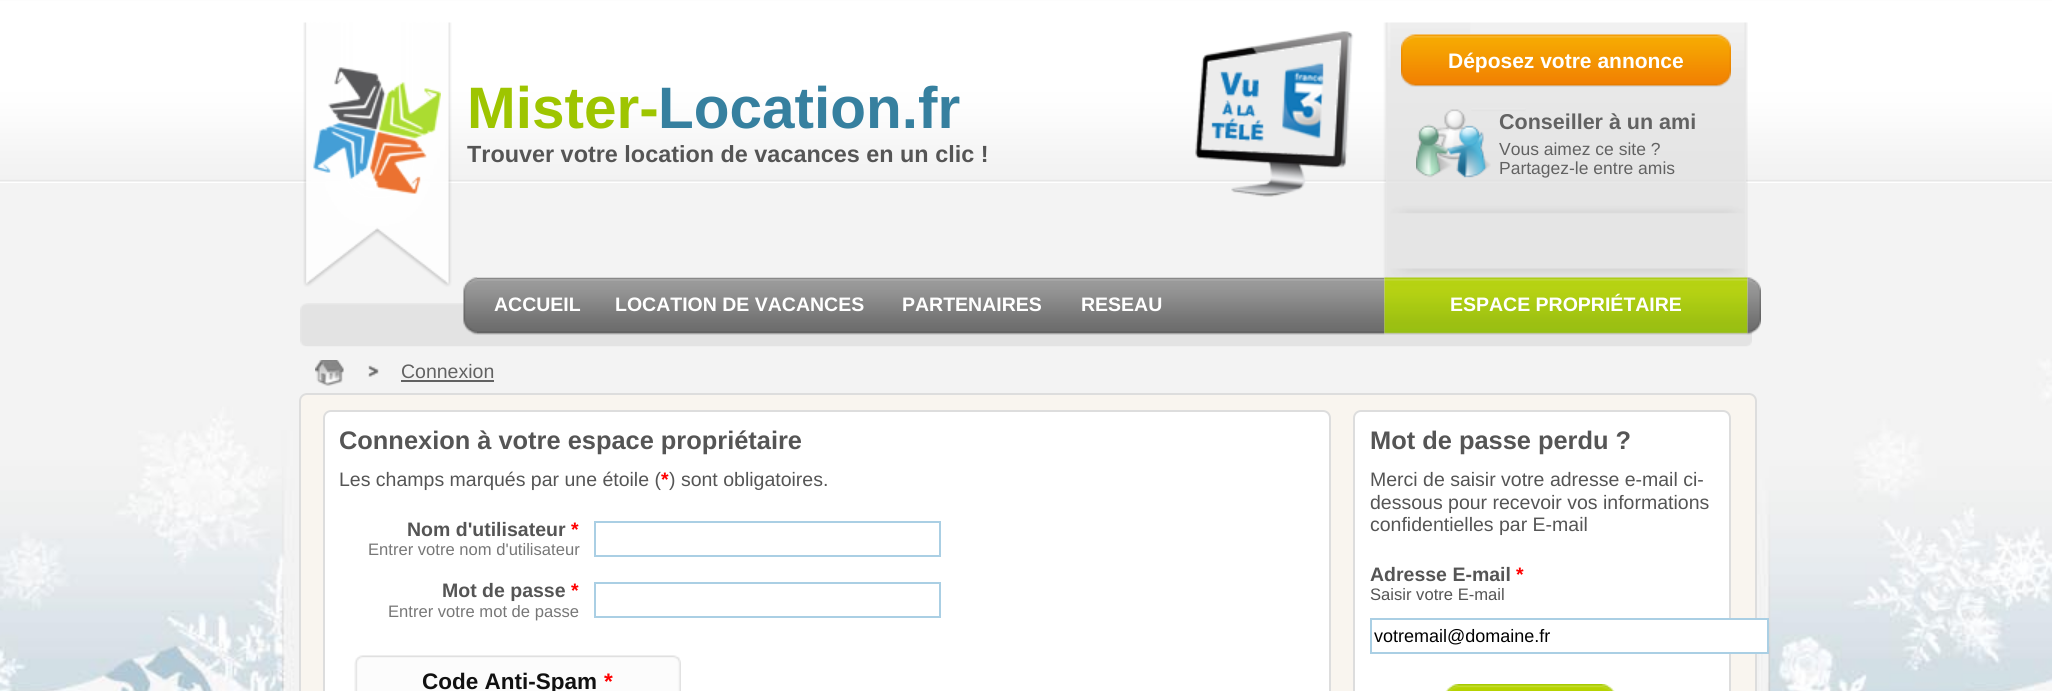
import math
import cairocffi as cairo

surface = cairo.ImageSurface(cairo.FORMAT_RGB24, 2052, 691)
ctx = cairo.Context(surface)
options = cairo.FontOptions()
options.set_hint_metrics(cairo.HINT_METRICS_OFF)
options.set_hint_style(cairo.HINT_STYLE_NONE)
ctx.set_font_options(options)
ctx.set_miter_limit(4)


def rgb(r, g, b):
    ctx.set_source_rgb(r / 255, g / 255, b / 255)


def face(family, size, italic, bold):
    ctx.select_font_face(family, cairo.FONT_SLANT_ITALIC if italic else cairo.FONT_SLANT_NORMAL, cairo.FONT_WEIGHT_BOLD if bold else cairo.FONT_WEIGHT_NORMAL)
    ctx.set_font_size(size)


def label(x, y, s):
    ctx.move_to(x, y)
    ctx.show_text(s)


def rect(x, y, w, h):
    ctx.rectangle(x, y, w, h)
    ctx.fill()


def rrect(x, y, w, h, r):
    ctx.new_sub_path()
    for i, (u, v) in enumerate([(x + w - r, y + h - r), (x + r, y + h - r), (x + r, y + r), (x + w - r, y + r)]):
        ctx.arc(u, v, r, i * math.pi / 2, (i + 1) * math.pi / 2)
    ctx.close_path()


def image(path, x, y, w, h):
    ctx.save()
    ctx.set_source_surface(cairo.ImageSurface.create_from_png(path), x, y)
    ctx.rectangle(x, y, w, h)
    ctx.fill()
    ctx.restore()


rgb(243, 243, 243)
ctx.paint()
image('image0.png', 0, 0, 2052, 183)
image('image1.png', 303, 22, 1445, 265)
image('image2.png', 313, 67, 128, 127)
face('Liberation Sans', 58.5, 0, 1)
rgb(158, 197, 0)
label(467, 128, 'Mister-')
rgb(54, 128, 159)
label(658, 128, 'Location.fr')
face('Liberation Sans', 23.4, 0, 1)
rgb(85, 85, 85)
label(467, 162, 'Trouver votre location de vacances en un clic !')
image('image3.png', 1401, 34, 330, 53)
face('Liberation Sans', 21, 0, 1)
rgb(255, 255, 255)
label(1448, 68, 'Déposez votre annonce')
image('image4.png', 1416, 109, 75, 69)
face('Liberation Sans', 21.5, 0, 1)
rgb(98, 98, 98)
label(1499, 129, 'Conseiller à un ami')
face('Liberation Sans', 17.5, 0, 0)
label(1499, 155, 'Vous aimez ce site ?')
label(1499, 174, 'Partagez-le entre amis')
image('image12.png', 300, 303, 1452, 44)
image('image5.png', 463, 277, 14, 58)
image('image6.png', 477, 277, 120, 58)
face('Liberation Sans', 19.5, 0, 1)
rgb(255, 255, 255)
label(494, 311, 'ACCUEIL')
image('image7.png', 597, 277, 285, 58)
label(615, 311, 'LOCATION DE VACANCES')
image('image8.png', 882, 277, 180, 58)
label(902, 311, 'PARTENAIRES')
image('image6.png', 1062, 277, 120, 58)
label(1081, 311, 'RESEAU')
image('image9.png', 1182, 277, 203, 58)
image('image10.png', 1384, 277, 364, 58)
label(1450, 311, 'ESPACE PROPRIÉTAIRE')
image('image11.png', 1747, 277, 14, 58)
image('image15.png', 0, 346, 2052, 345)
image('image13.png', 315, 360, 29, 26)
image('image14.png', 368, 365, 11, 12)
face('Liberation Sans', 19.5, 0, 0)
rgb(98, 98, 98)
label(401, 378, 'Connexion')
rect(401, 380, 93, 2)
rgb(249, 245, 239)
rrect(300, 394, 1456, 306, 7)
ctx.fill_preserve()
rgb(221, 221, 221)
ctx.stroke()
rgb(255, 255, 255)
rrect(324, 411, 1006, 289, 7)
ctx.fill_preserve()
rgb(221, 221, 221)
ctx.stroke()
face('Liberation Sans', 25.4, 0, 1)
rgb(85, 85, 85)
label(339, 449, 'Connexion à votre espace propriétaire')
face('Liberation Sans', 19.5, 0, 0)
label(339, 486, 'Les champs marqués par une étoile (')
face('Liberation Sans', 19.5, 0, 1)
rgb(255, 0, 0)
label(661, 486, '*')
face('Liberation Sans', 19.5, 0, 0)
rgb(85, 85, 85)
label(669, 486, ') sont obligatoires.')
face('Liberation Sans', 19.5, 0, 1)
label(407, 536, 'Nom d\'utilisateur')
rgb(255, 0, 0)
label(571, 536, '*')
face('Liberation Sans', 16.6, 0, 0)
rgb(119, 119, 119)
label(368, 555, 'Entrer votre nom d\'utilisateur')
ctx.rectangle(595, 522, 345, 34)
rgb(170, 207, 228)
ctx.stroke()
face('Liberation Sans', 19.5, 0, 1)
rgb(85, 85, 85)
label(442, 597, 'Mot de passe')
rgb(255, 0, 0)
label(571, 597, '*')
face('Liberation Sans', 16.6, 0, 0)
rgb(119, 119, 119)
label(388, 617, 'Entrer votre mot de passe')
ctx.rectangle(595, 583, 345, 34)
rgb(170, 207, 228)
ctx.stroke()
image('image16.png', 354, 655, 327, 36)
face('Liberation Sans', 22.5, 0, 1)
rgb(17, 17, 17)
label(422, 689, 'Code Anti-Spam')
rgb(255, 0, 0)
label(604, 689, '*')
rgb(255, 255, 255)
rrect(1354, 411, 376, 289, 7)
ctx.fill_preserve()
rgb(221, 221, 221)
ctx.stroke()
face('Liberation Sans', 25.4, 0, 1)
rgb(85, 85, 85)
label(1370, 449, 'Mot de passe perdu ?')
face('Liberation Sans', 19.5, 0, 0)
label(1370, 486, 'Merci de saisir votre adresse e-mail ci-')
label(1370, 509, 'dessous pour recevoir vos informations')
label(1370, 531, 'confidentielles par E-mail')
face('Liberation Sans', 19.5, 0, 1)
label(1370, 581, 'Adresse E-mail')
rgb(255, 0, 0)
label(1516, 581, '*')
face('Liberation Sans', 16.6, 0, 0)
rgb(85, 85, 85)
label(1370, 600, 'Saisir votre E-mail')
rgb(255, 255, 255)
rect(1729, 620, 38, 32)
ctx.rectangle(1371, 619, 397, 34)
rgb(170, 207, 228)
ctx.stroke()
face('Liberation Sans', 18, 0, 0)
rgb(0, 0, 0)
label(1374, 642, 'votremail@domaine.fr')
image('image17.png', 1445, 684, 170, 7)
surface.write_to_png('render.png')
